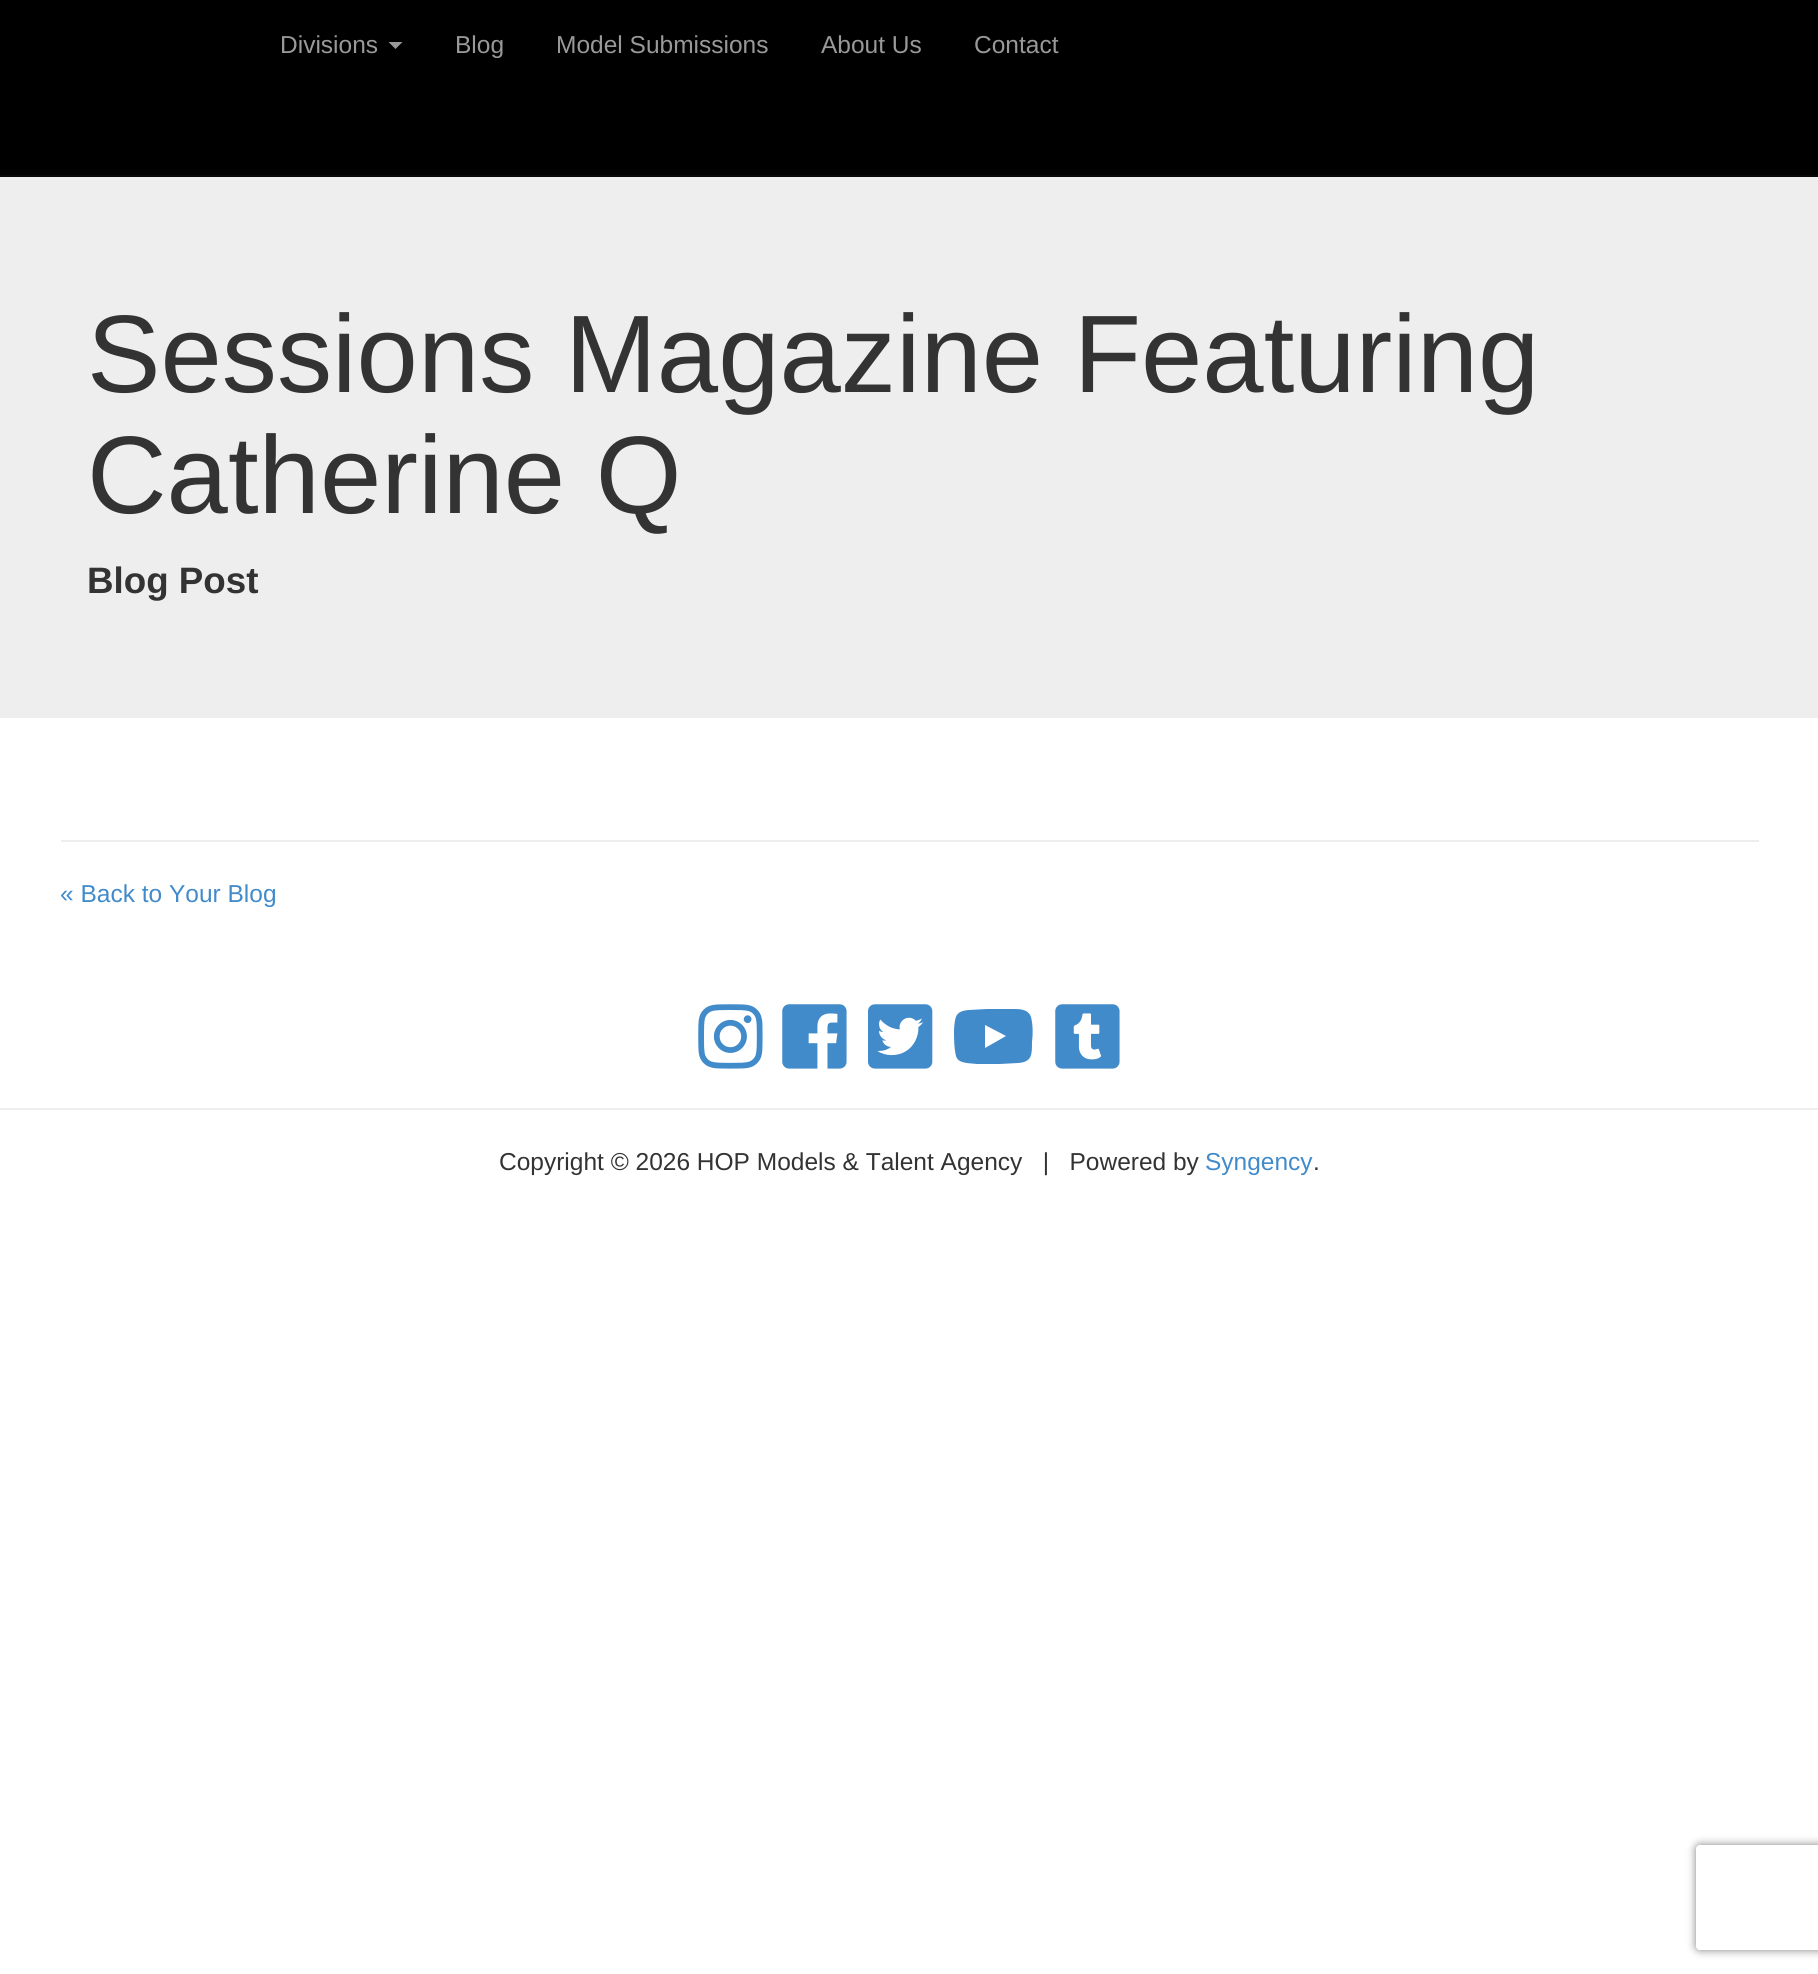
import math
import cairocffi as cairo

surface = cairo.ImageSurface(cairo.FORMAT_RGB24, 1818, 1974)
ctx = cairo.Context(surface)
options = cairo.FontOptions()
options.set_hint_metrics(cairo.HINT_METRICS_OFF)
options.set_hint_style(cairo.HINT_STYLE_NONE)
ctx.set_font_options(options)
ctx.set_miter_limit(4)


def rgb(r, g, b):
    ctx.set_source_rgb(r / 255, g / 255, b / 255)


def face(family, size, italic, bold):
    ctx.select_font_face(family, cairo.FONT_SLANT_ITALIC if italic else cairo.FONT_SLANT_NORMAL, cairo.FONT_WEIGHT_BOLD if bold else cairo.FONT_WEIGHT_NORMAL)
    ctx.set_font_size(size)


def label(x, y, s):
    ctx.move_to(x, y)
    ctx.show_text(s)


def rect(x, y, w, h):
    ctx.rectangle(x, y, w, h)
    ctx.fill()


def rrect(x, y, w, h, r):
    ctx.new_sub_path()
    for i, (u, v) in enumerate([(x + w - r, y + h - r), (x + r, y + h - r), (x + r, y + r), (x + w - r, y + r)]):
        ctx.arc(u, v, r, i * math.pi / 2, (i + 1) * math.pi / 2)
    ctx.close_path()


def soft_shadow(x, y, w, h, r, blur, alpha):
    ctx.push_group_with_content(cairo.CONTENT_ALPHA)
    ctx.set_operator(cairo.OPERATOR_SOURCE)
    for i in range(15, -16, -2):
        e = blur * i / 6
        if min(w, h) + 2 * e > 0:
            ctx.set_source_rgba(0, 0, 0, alpha * math.erfc((i - 1) / 8.5) / 2)
            rrect(x - e, y - e, w + 2 * e, h + 2 * e, max(0, min(r + e + blur * .6, min(w, h) / 2 + e)))
            ctx.fill()
    ctx.mask(ctx.pop_group())


def image(path, x, y, w, h):
    ctx.save()
    ctx.set_source_surface(cairo.ImageSurface.create_from_png(path), x, y)
    ctx.rectangle(x, y, w, h)
    ctx.fill()
    ctx.restore()


rgb(255, 255, 255)
ctx.paint()
rgb(0, 0, 0)
rect(0, 0, 1818, 175)
rgb(8, 8, 8)
rect(0, 175, 1818, 2)
face('Liberation Sans', 24.5, 0, 0)
rgb(153, 153, 153)
label(280, 53, 'Divisions')
ctx.new_path()
ctx.move_to(388.5, 42)
ctx.line_to(402.5, 42)
ctx.line_to(395.5, 49)
ctx.close_path()
ctx.fill()
label(455, 53, 'Blog')
label(556, 53, 'Model Submissions')
label(821, 53, 'About Us')
label(974, 53, 'Contact')
rgb(238, 238, 238)
rect(0, 177, 1818, 541)
face('Liberation Sans', 110.25, 0, 0)
rgb(51, 51, 51)
label(87, 392, 'Sessions Magazine Featuring')
label(87, 513, 'Catherine Q')
face('Liberation Sans', 36.75, 0, 1)
label(87, 593, 'Blog Post')
rgb(238, 238, 238)
rect(61, 840, 1698, 2)
face('Liberation Sans', 24.5, 0, 0)
rgb(66, 139, 202)
label(60, 902, '« Back to Your Blog')
image('image0.png', 698, 1004, 65, 65)
image('image1.png', 782, 1004, 65, 65)
image('image2.png', 868, 1004, 65, 65)
ctx.new_path()
ctx.move_to(1031, 1017)
ctx.curve_to(1028, 1008, 1017, 1009, 1010, 1009)
ctx.line_to(987, 1009)
ctx.line_to(969, 1010)
ctx.curve_to(955, 1011, 955, 1017, 954, 1030)
ctx.curve_to(954, 1039, 954, 1048, 956, 1056)
ctx.curve_to(958, 1064, 970, 1063, 977, 1064)
ctx.line_to(1000, 1064)
ctx.line_to(1018, 1063)
ctx.curve_to(1032, 1062, 1032, 1055, 1032, 1042)
ctx.curve_to(1033, 1034, 1033, 1025, 1031, 1017)
ctx.close_path()
ctx.move_to(985, 1048)
ctx.line_to(985, 1025)
ctx.line_to(1006, 1036)
ctx.close_path()
ctx.fill()
image('image3.png', 1055, 1004, 65, 65)
rgb(238, 238, 238)
rect(0, 1108, 1818, 2)
rgb(51, 51, 51)
label(499, 1170, 'Copyright © 2026 HOP Models & Talent Agency   |   Powered by')
rgb(66, 139, 202)
label(1205, 1170, 'Syngency')
rgb(51, 51, 51)
label(1313, 1170, '.')
ctx.save()
ctx.set_fill_rule(cairo.FILL_RULE_EVEN_ODD)
ctx.new_path()
ctx.move_to(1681, 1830)
ctx.line_to(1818, 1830)
ctx.line_to(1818, 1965)
ctx.line_to(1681, 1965)
ctx.close_path()
ctx.move_to(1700, 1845)
ctx.line_to(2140, 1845)
ctx.curve_to(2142, 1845, 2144, 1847, 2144, 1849)
ctx.line_to(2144, 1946)
ctx.curve_to(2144, 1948, 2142, 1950, 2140, 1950)
ctx.line_to(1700, 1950)
ctx.curve_to(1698, 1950, 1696, 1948, 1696, 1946)
ctx.line_to(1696, 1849)
ctx.curve_to(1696, 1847, 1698, 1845, 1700, 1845)
ctx.close_path()
ctx.clip()
rgb(128, 128, 128)
soft_shadow(1696, 1845, 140, 105, 4, 4.5, 1)
ctx.restore()
surface.write_to_png('render.png')
